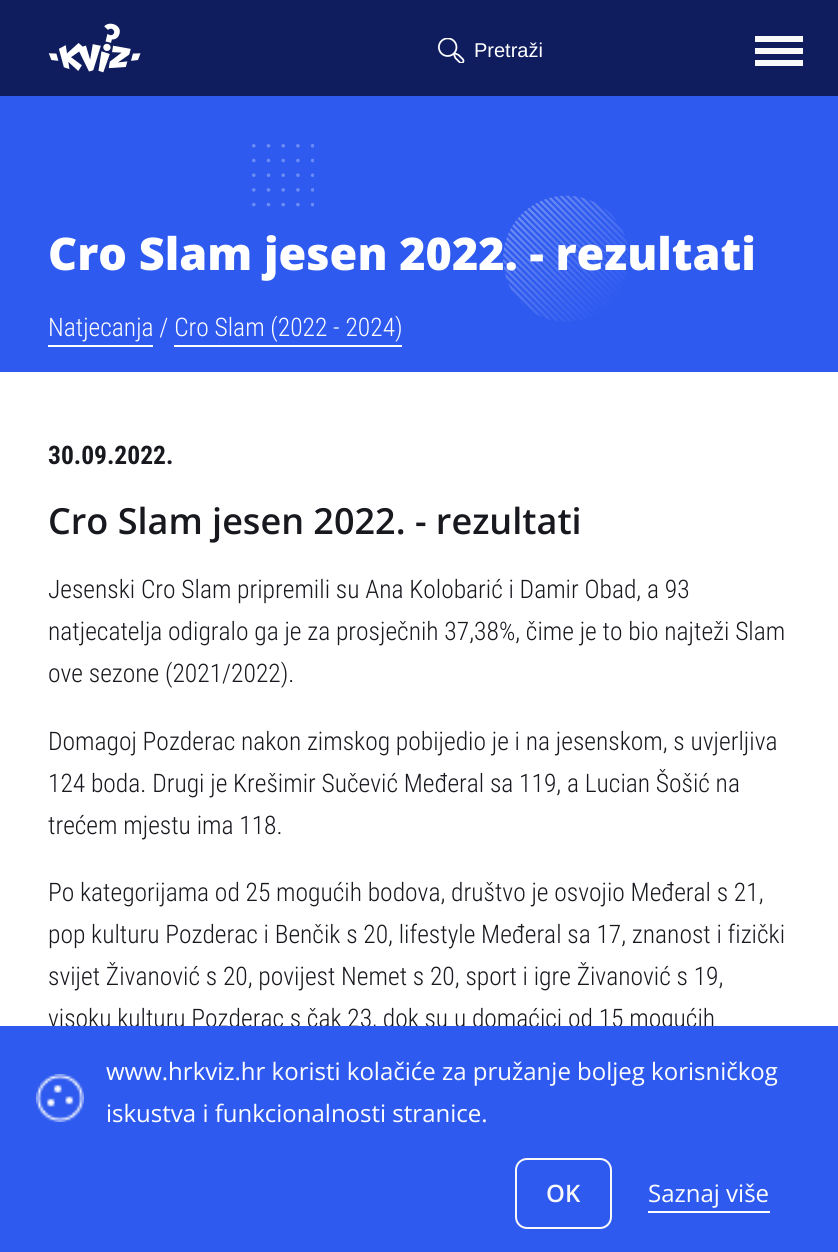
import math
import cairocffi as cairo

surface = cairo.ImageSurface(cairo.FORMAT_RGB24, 838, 1252)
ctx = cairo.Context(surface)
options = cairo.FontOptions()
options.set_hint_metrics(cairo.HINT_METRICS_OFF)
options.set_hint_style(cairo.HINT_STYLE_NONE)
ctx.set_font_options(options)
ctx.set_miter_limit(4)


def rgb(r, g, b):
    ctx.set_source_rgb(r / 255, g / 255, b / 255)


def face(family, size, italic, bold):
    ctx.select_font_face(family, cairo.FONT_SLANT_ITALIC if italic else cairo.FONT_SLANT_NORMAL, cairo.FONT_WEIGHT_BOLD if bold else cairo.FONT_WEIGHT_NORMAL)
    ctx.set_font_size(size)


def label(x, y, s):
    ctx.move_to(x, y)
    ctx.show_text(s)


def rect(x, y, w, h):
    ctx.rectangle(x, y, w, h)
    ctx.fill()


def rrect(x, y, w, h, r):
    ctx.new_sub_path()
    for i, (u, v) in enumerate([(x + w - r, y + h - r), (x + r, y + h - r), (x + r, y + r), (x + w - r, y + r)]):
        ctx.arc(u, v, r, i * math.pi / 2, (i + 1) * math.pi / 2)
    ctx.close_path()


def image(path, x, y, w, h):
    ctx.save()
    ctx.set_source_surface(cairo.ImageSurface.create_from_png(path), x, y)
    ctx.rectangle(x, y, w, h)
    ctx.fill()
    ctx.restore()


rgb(255, 255, 255)
ctx.paint()
rgb(15, 29, 94)
rect(0, 0, 838, 96)
image('image0.png', 48, 23, 93, 50)
image('image1.png', 438, 38, 27, 25)
face('Liberation Sans', 20, 0, 0)
rgb(255, 255, 255)
label(474, 57, 'Pretraži')
rgb(249, 249, 249)
rect(755, 48, 48, 6)
rect(755, 36, 48, 6)
rect(755, 60, 48, 6)
rgb(46, 90, 239)
rect(0, 96, 838, 276)
image('image2.png', 503, 195, 126, 127)
image('image3.png', 252, 144, 62, 63)
face('Open Sans ExtraBold', 45, 0, 0)
rgb(255, 255, 255)
label(48, 270, 'Cro Slam jesen 2022. - rezultati')
face('Roboto Condensed Light', 25.5, 0, 0)
label(48, 336, 'Natjecanja / Cro Slam (2022 - 2024)')
rect(48, 345, 105, 2)
rect(174, 345, 228, 2)
face('Roboto Condensed', 25.5, 0, 1)
rgb(24, 25, 31)
label(48, 464, '30.09.2022.')
face('Open Sans SemiBold', 36, 0, 0)
label(48, 534, 'Cro Slam jesen 2022. - rezultati')
face('Roboto Condensed Light', 25.5, 0, 0)
label(48, 598, 'Jesenski Cro Slam pripremili su Ana Kolobarić i Damir Obad, a 93')
label(48, 640, 'natjecatelja odigralo ga je za prosječnih 37,38%, čime je to bio najteži Slam')
label(48, 682, 'ove sezone (2021/2022).')
label(48, 750, 'Domagoj Pozderac nakon zimskog pobijedio je i na jesenskom, s uvjerljiva')
label(48, 792, '124 boda. Drugi je Krešimir Sučević Međeral sa 119, a Lucian Šošić na')
label(48, 834, 'trećem mjestu ima 118.')
label(48, 901, 'Po kategorijama od 25 mogućih bodova, društvo je osvojio Međeral s 21,')
label(48, 943, 'pop kulturu Pozderac i Benčik s 20, lifestyle Međeral sa 17, znanost i fizički')
label(48, 985, 'svijet Živanović s 20, povijest Nemet s 20, sport i igre Živanović s 19,')
label(48, 1027, 'visoku kulturu Pozderac s čak 23, dok su u domaćici od 15 mogućih')
rgb(46, 90, 239)
rect(0, 1026, 838, 226)
image('image4.png', 36, 1074, 48, 48)
face('Open Sans', 24, 0, 0)
rgb(255, 255, 255)
label(106, 1080, 'www.hrkviz.hr koristi kolačiće za pružanje boljeg korisničkog')
label(106, 1122, 'iskustva i funkcionalnosti stranice.')
rrect(516, 1159, 95, 69, 11)
rgb(249, 249, 249)
ctx.stroke()
face('Open Sans SemiBold', 24, 0, 0)
label(546, 1202, 'OK')
face('Open Sans', 24, 0, 0)
rgb(255, 255, 255)
label(648, 1202, 'Saznaj više')
rect(648, 1211, 122, 2)
surface.write_to_png('render.png')
